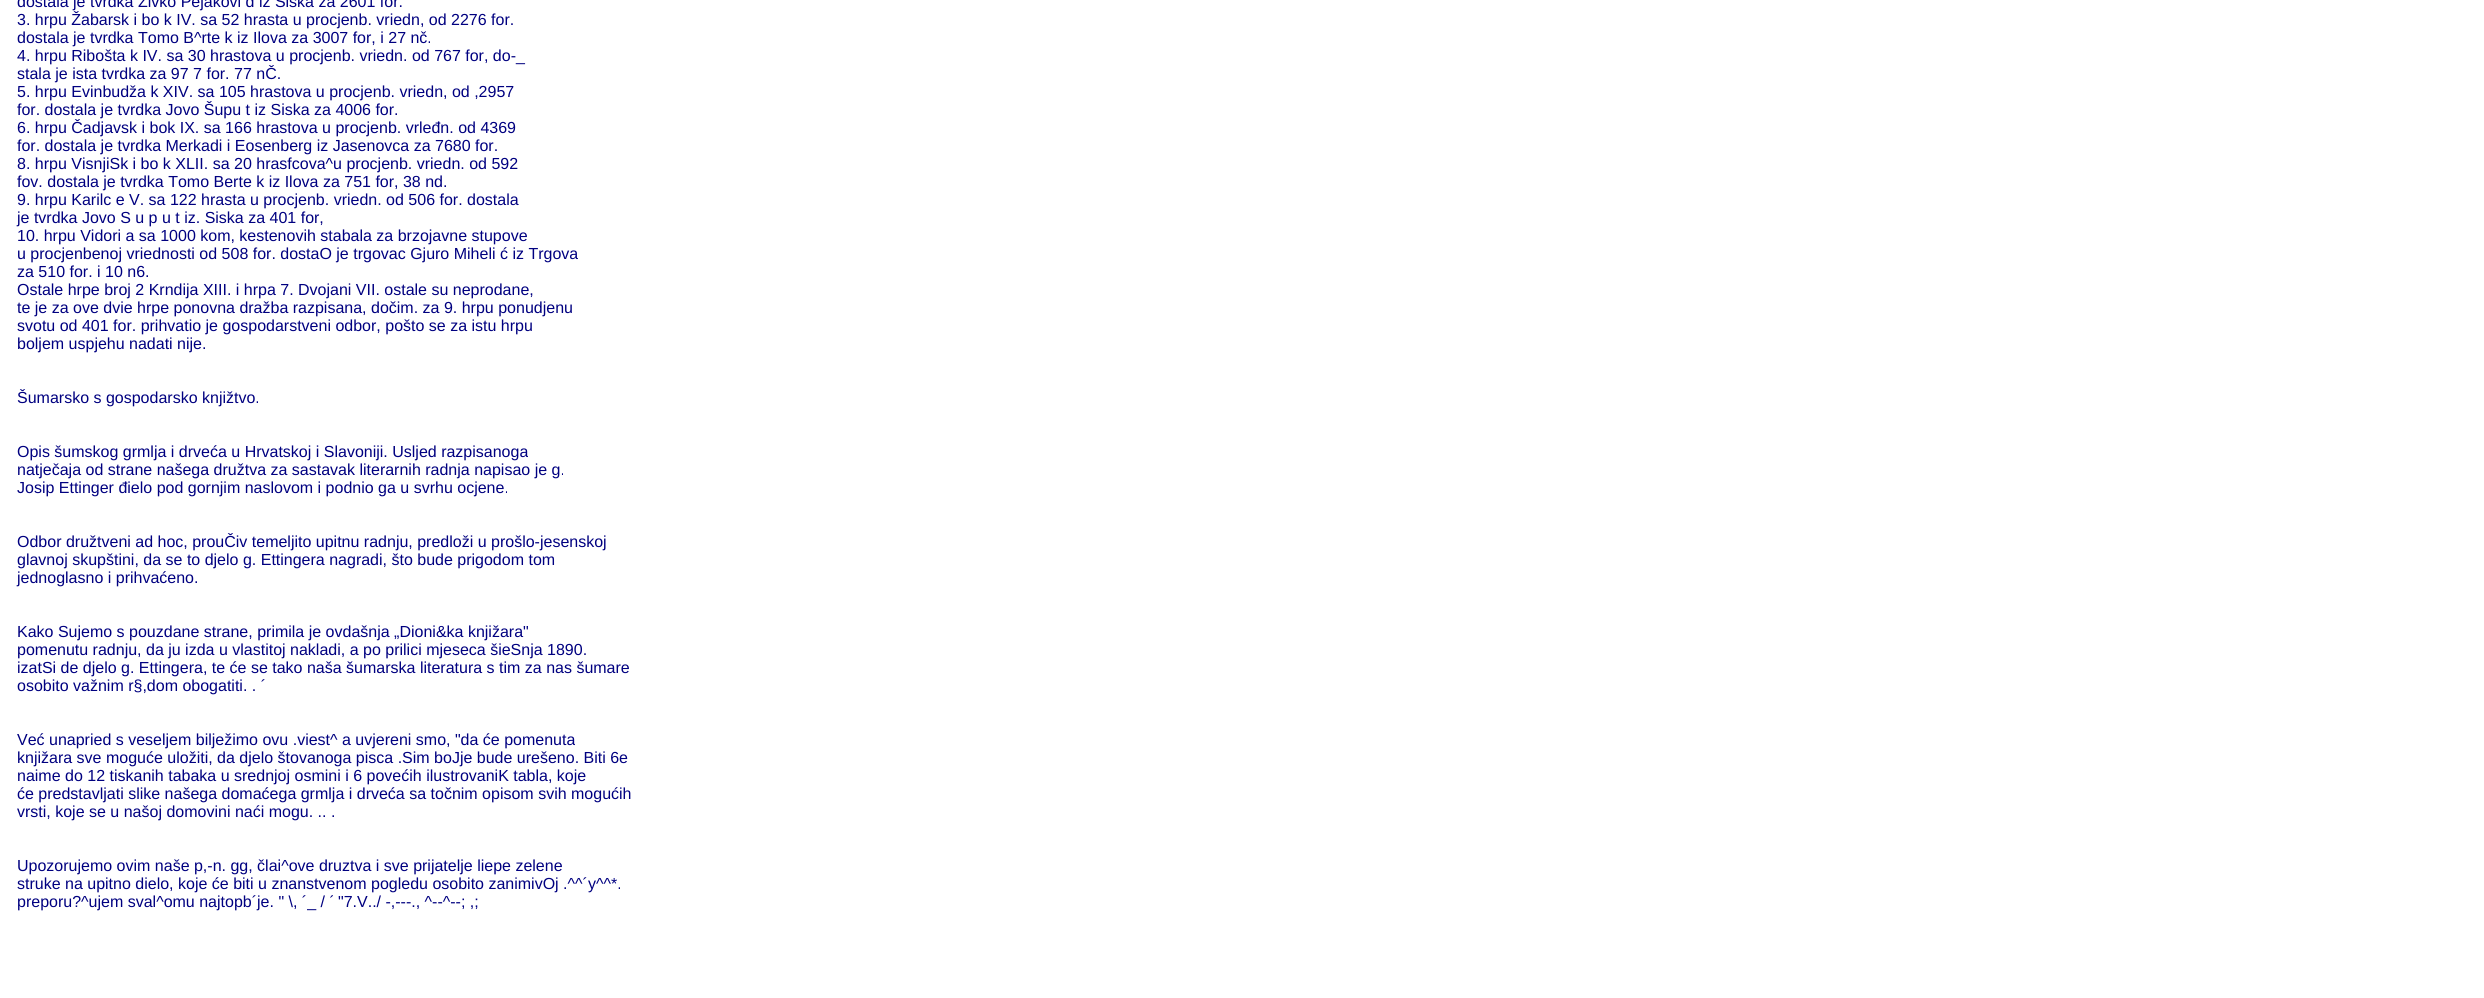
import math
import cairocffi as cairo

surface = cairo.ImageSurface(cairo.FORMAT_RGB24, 2484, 998)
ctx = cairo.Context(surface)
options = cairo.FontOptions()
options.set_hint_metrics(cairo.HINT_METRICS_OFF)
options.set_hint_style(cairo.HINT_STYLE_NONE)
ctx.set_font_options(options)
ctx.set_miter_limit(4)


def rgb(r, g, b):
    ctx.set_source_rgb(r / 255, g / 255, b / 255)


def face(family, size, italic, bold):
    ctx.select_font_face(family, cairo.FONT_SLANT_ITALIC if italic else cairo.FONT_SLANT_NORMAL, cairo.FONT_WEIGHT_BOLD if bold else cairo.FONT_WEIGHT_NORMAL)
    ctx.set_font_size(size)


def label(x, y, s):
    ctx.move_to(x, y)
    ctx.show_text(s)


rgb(255, 255, 255)
ctx.paint()
face('Liberation Sans', 16, 0, 0)
rgb(0, 0, 128)
label(17, 7, 'dostala je tvrdka Živko Pejakovi d iz Siska za 2601 for.')
label(17, 25, '3. hrpu Žabarsk i bo k IV. sa 52 hrasta u procjenb. vriedn, od 2276 for.')
label(17, 43, 'dostala je tvrdka Tomo B^rte k iz Ilova za 3007 for, i 27 nč.')
label(17, 61, '4. hrpu Ribošta k IV. sa 30 hrastova u procjenb. vriedn. od 767 for, do-_')
label(17, 79, 'stala je ista tvrdka za 97 7 for. 77 nČ.')
label(17, 97, '5. hrpu Evinbudža k XIV. sa 105 hrastova u procjenb. vriedn, od ,2957')
label(17, 115, 'for. dostala je tvrdka Jovo Šupu t iz Siska za 4006 for.')
label(17, 133, '6. hrpu Čadjavsk i bok IX. sa 166 hrastova u procjenb. vrleđn. od 4369')
label(17, 151, 'for. dostala je tvrdka Merkadi i Eosenberg iz Jasenovca za 7680 for.')
label(17, 169, '8. hrpu VisnjiSk i bo k XLII. sa 20 hrasfcova^u procjenb. vriedn. od 592')
label(17, 187, 'fov. dostala je tvrdka Tomo Berte k iz Ilova za 751 for, 38 nd.')
label(17, 205, '9. hrpu Karilc e V. sa 122 hrasta u procjenb. vriedn. od 506 for. dostala')
label(17, 223, 'je tvrdka Jovo S u p u t iz. Siska za 401 for,')
label(17, 241, '10. hrpu Vidori a sa 1000 kom, kestenovih stabala za brzojavne stupove')
label(17, 259, 'u procjenbenoj vriednosti od 508 for. dostaO je trgovac Gjuro Miheli ć iz Trgova')
label(17, 277, 'za 510 for. i 10 n6.')
label(17, 295, 'Ostale hrpe broj 2 Krndija XIII. i hrpa 7. Dvojani VII. ostale su neprodane,')
label(17, 313, 'te je za ove dvie hrpe ponovna dražba razpisana, dočim. za 9. hrpu ponudjenu')
label(17, 331, 'svotu od 401 for. prihvatio je gospodarstveni odbor, pošto se za istu hrpu')
label(17, 349, 'boljem uspjehu nadati nije.')
label(17, 403, 'Šumarsko s gospodarsko knjižtvo.')
label(17, 457, 'Opis šumskog grmlja i drveća u Hrvatskoj i Slavoniji. Usljed razpisanoga')
label(17, 475, 'natječaja od strane našega družtva za sastavak literarnih radnja napisao je g.')
label(17, 493, 'Josip Ettinger đielo pod gornjim naslovom i podnio ga u svrhu ocjene.')
label(17, 547, 'Odbor družtveni ad hoc, prouČiv temeljito upitnu radnju, predloži u prošlo-jesenskoj')
label(17, 565, 'glavnoj skupštini, da se to djelo g. Ettingera nagradi, što bude prigodom tom')
label(17, 583, 'jednoglasno i prihvaćeno.')
label(17, 637, 'Kako Sujemo s pouzdane strane, primila je ovdašnja „Dioni&ka knjižara"')
label(17, 655, 'pomenutu radnju, da ju izda u vlastitoj nakladi, a po prilici mjeseca šieSnja 1890.')
label(17, 673, 'izatSi de djelo g. Ettingera, te će se tako naša šumarska literatura s tim za nas šumare')
label(17, 691, 'osobito važnim r§,dom obogatiti. . ´')
label(17, 745, 'Već unapried s veseljem bilježimo ovu .viest^ a uvjereni smo, "da će pomenuta')
label(17, 763, 'knjižara sve moguće uložiti, da djelo štovanoga pisca .Sim boJje bude urešeno. Biti 6e')
label(17, 781, 'naime do 12 tiskanih tabaka u srednjoj osmini i 6 povećih ilustrovaniK tabla, koje')
label(17, 799, 'će predstavljati slike našega domaćega grmlja i drveća sa točnim opisom svih mogućih')
label(17, 817, 'vrsti, koje se u našoj domovini naći mogu. .. .')
label(17, 871, 'Upozorujemo ovim naše p,-n. gg, člai^ove druztva i sve prijatelje liepe zelene')
label(17, 889, 'struke na upitno dielo, koje će biti u znanstvenom pogledu osobito zanimivOj .^^´y^^*.')
label(17, 907, 'preporu?^ujem sval^omu najtopb´je. " \\, ´_ / ´')
label(338, 907, '"7.V../ -,---., ^--^--; ,;')
surface.write_to_png('render.png')
